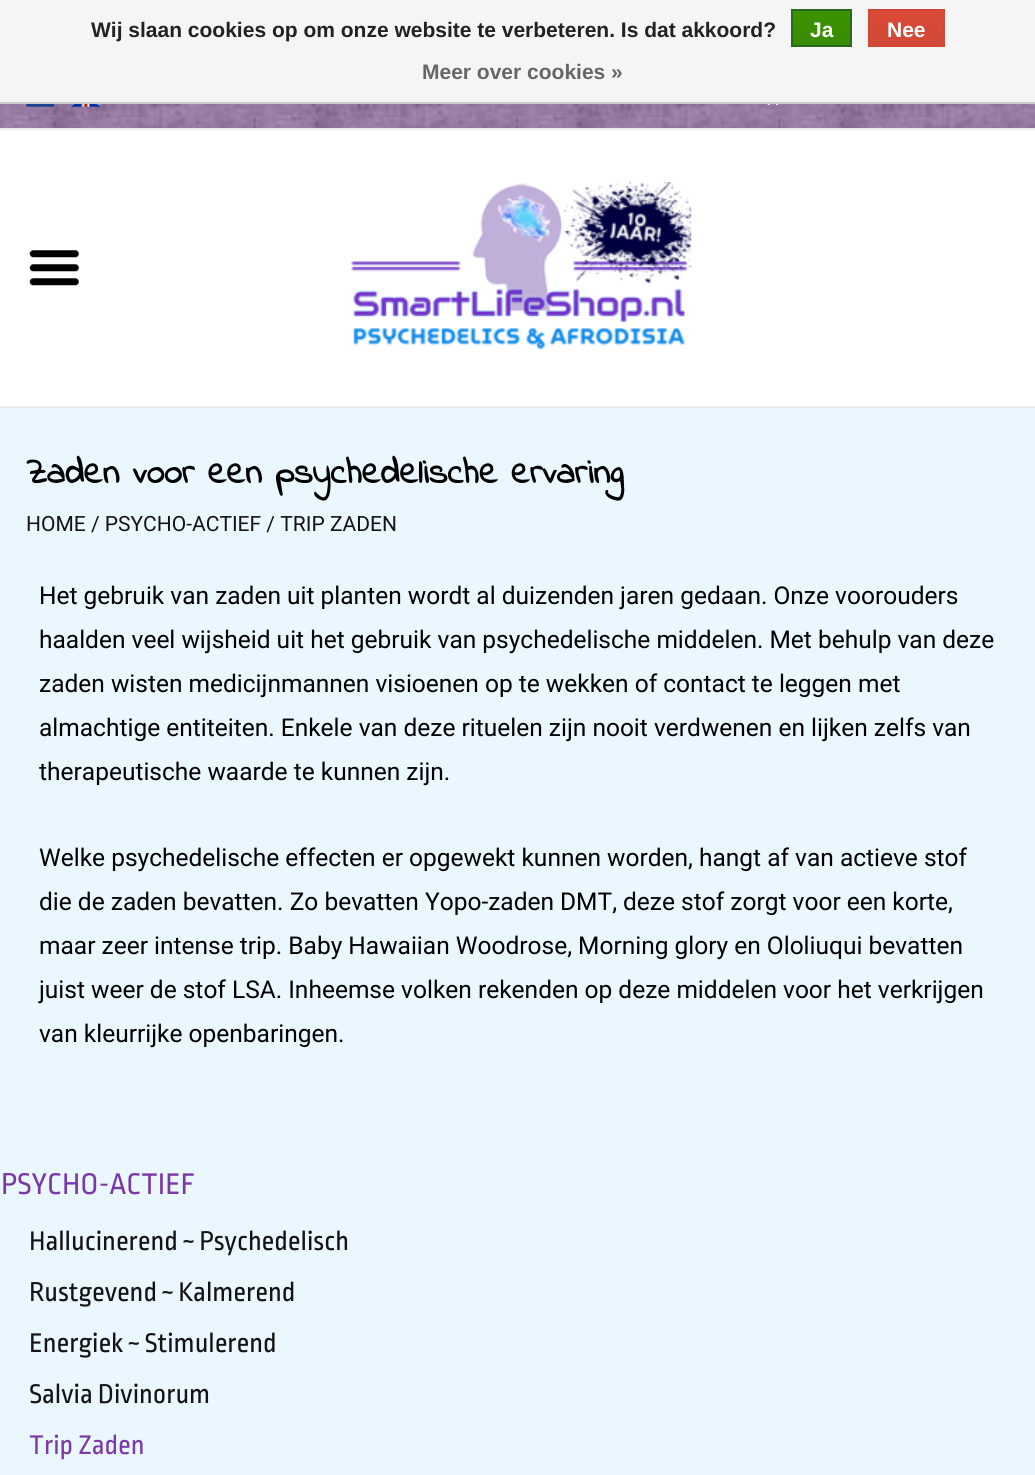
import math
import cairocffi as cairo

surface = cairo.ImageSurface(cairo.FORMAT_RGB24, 1035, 1475)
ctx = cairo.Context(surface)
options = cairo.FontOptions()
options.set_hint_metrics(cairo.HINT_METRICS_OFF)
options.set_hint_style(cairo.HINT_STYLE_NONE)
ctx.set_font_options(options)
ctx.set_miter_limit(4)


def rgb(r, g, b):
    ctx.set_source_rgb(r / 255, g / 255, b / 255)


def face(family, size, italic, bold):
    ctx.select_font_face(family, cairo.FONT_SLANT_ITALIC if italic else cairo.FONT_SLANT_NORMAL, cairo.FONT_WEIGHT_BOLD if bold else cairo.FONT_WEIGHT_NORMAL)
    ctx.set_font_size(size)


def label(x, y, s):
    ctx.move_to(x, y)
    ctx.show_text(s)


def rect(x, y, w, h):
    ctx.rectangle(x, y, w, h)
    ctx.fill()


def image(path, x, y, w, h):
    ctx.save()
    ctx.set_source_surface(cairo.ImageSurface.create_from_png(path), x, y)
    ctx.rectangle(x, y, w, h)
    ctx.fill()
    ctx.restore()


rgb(255, 255, 255)
ctx.paint()
rgb(245, 245, 245)
rect(0, 0, 1035, 102)
rgb(204, 204, 204)
rect(0, 102, 1035, 2)
face('Liberation Sans', 21, 0, 1)
rgb(34, 34, 34)
label(91, 37, 'Wij slaan cookies op om onze website te verbeteren. Is dat akkoord?')
gradient = cairo.LinearGradient(822, 10, 822, 46)
gradient.add_color_stop_rgba(0, 0.235, 0.576, 0, 1)
gradient.add_color_stop_rgba(1, 0.224, 0.541, 0, 1)
ctx.set_source(gradient)
rect(793, 11, 57, 34)
ctx.rectangle(792, 10, 59, 36)
rgb(41, 105, 29)
ctx.stroke()
rgb(255, 255, 255)
label(810, 37, 'Ja')
gradient = cairo.LinearGradient(907, 10, 907, 46)
gradient.add_color_stop_rgba(0, 0.863, 0.29, 0.22, 1)
gradient.add_color_stop_rgba(1, 0.82, 0.282, 0.212, 1)
ctx.set_source(gradient)
rect(870, 11, 73, 34)
ctx.rectangle(869, 10, 75, 36)
rgb(209, 72, 54)
ctx.stroke()
rgb(255, 255, 255)
label(887, 37, 'Nee')
rgb(102, 102, 102)
label(422, 79, 'Meer over cookies »')
image('image0.png', 0, 104, 1035, 24)
rgb(237, 237, 237)
rect(0, 128, 1035, 2)
image('image1.png', 26, 104, 29, 3)
image('image2.png', 71, 104, 29, 3)
image('image3.png', 767, 104, 11, 1)
rgb(234, 234, 234)
rect(0, 406, 1035, 2)
image('image4.png', 351, 182, 341, 168)
image('image5.png', 29, 250, 50, 36)
rgb(234, 247, 255)
rect(0, 408, 1035, 1067)
face('Indie Flower', 36.1, 0, 1)
rgb(0, 0, 0)
label(26, 483, 'Zaden voor een psychedelische ervaring')
face('Roboto', 21, 0, 0)
rgb(20, 20, 20)
label(26, 531, 'HOME / PSYCHO-ACTIEF / TRIP ZADEN')
face('Roboto', 24.5, 0, 0)
rgb(0, 0, 0)
label(39, 604, 'Het gebruik van zaden uit planten wordt al duizenden jaren gedaan. Onze voorouders')
label(39, 648, 'haalden veel wijsheid uit het gebruik van psychedelische middelen. Met behulp van deze')
label(39, 692, 'zaden wisten medicijnmannen visioenen op te wekken of contact te leggen met')
label(39, 736, 'almachtige entiteiten. Enkele van deze rituelen zijn nooit verdwenen en lijken zelfs van')
label(39, 780, 'therapeutische waarde te kunnen zijn.')
label(39, 866, 'Welke psychedelische effecten er opgewekt kunnen worden, hangt af van actieve stof')
label(39, 910, 'die de zaden bevatten. Zo bevatten Yopo-zaden DMT, deze stof zorgt voor een korte,')
label(39, 954, 'maar zeer intense trip. Baby Hawaiian Woodrose, Morning glory en Ololiuqui bevatten')
label(39, 998, 'juist weer de stof LSA. Inheemse volken rekenden op deze middelen voor het verkrijgen')
label(39, 1042, 'van kleurrijke openbaringen.')
face('Ropa Sans', 31.5, 0, 0)
rgb(122, 57, 166)
label(1, 1194, 'PSYCHO-ACTIEF')
face('Ropa Sans', 28.4, 0, 0)
rgb(20, 20, 20)
label(29, 1250, 'Hallucinerend ~ Psychedelisch')
label(29, 1301, 'Rustgevend ~ Kalmerend')
label(29, 1352, 'Energiek ~ Stimulerend')
label(29, 1403, 'Salvia Divinorum')
rgb(122, 57, 166)
label(29, 1454, 'Trip Zaden')
surface.write_to_png('render.png')
